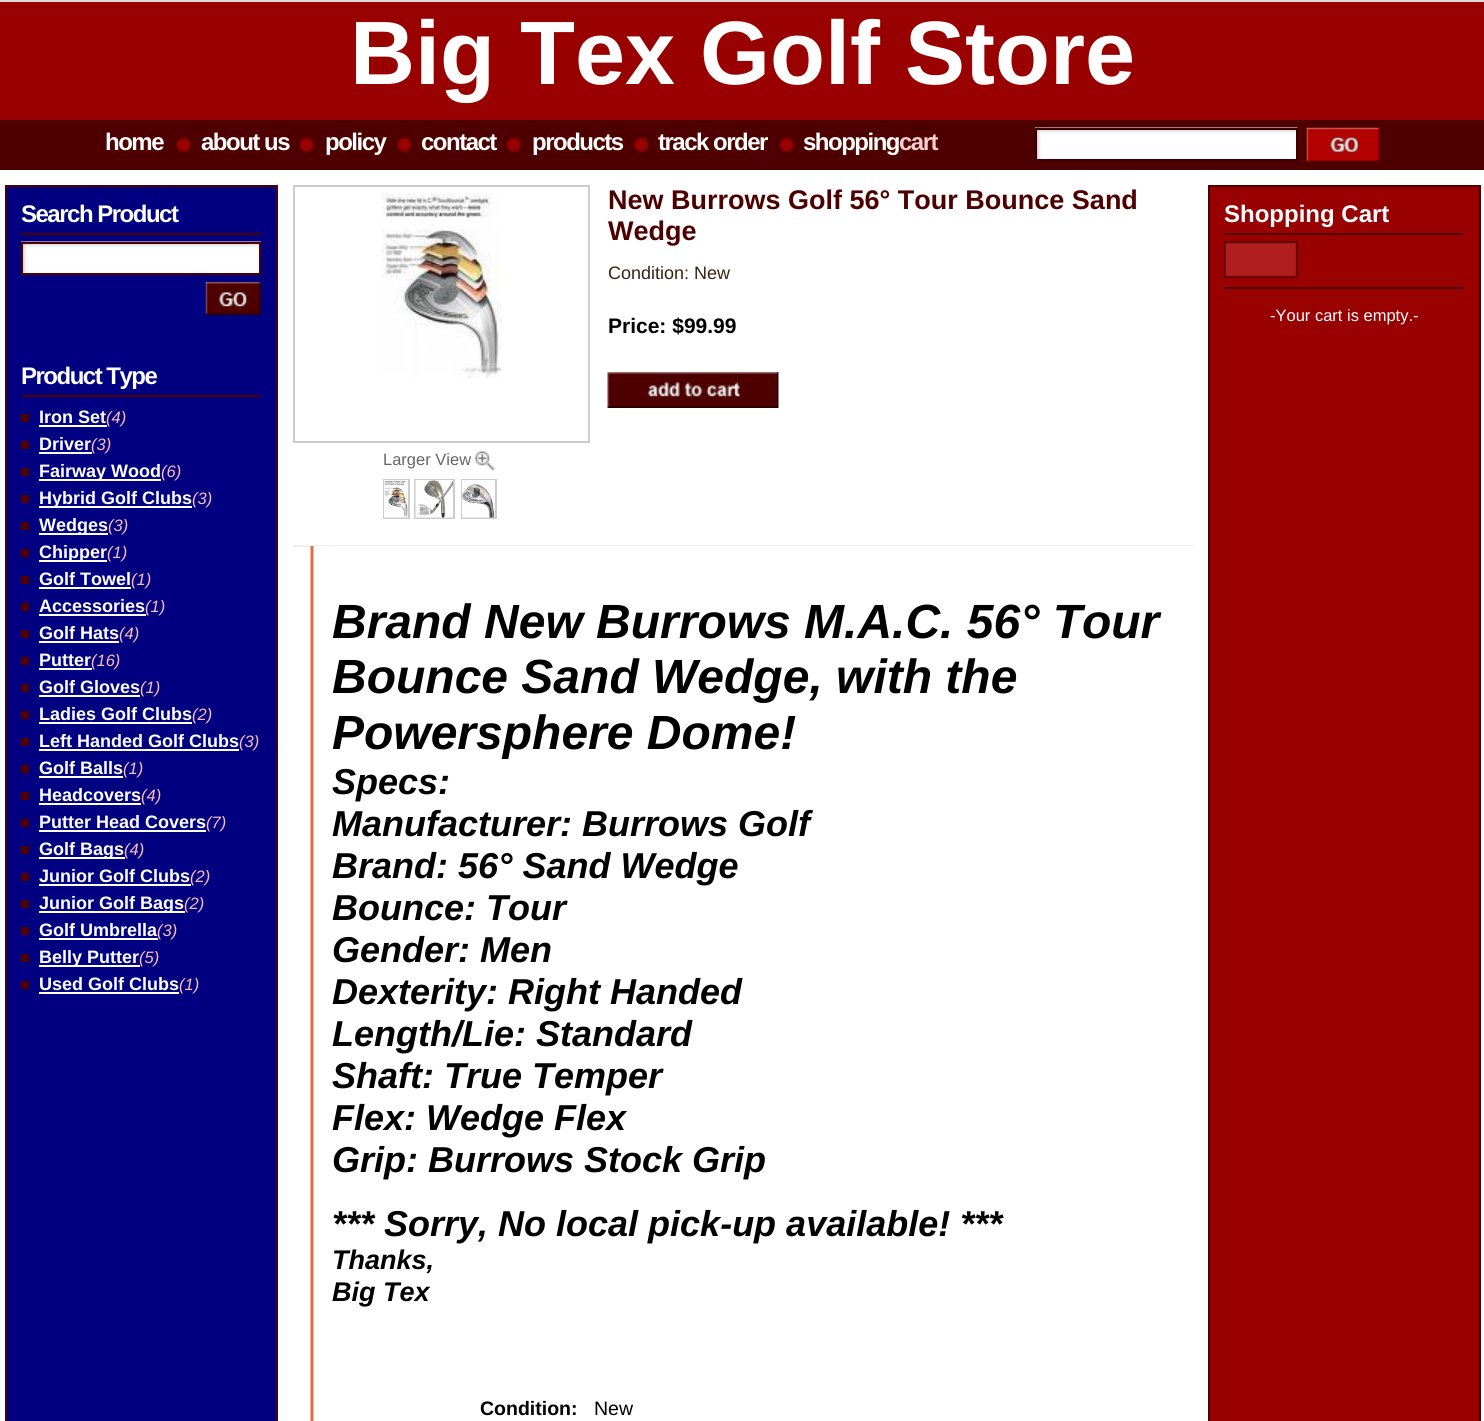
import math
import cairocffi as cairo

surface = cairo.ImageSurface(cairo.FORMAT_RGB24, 1484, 1421)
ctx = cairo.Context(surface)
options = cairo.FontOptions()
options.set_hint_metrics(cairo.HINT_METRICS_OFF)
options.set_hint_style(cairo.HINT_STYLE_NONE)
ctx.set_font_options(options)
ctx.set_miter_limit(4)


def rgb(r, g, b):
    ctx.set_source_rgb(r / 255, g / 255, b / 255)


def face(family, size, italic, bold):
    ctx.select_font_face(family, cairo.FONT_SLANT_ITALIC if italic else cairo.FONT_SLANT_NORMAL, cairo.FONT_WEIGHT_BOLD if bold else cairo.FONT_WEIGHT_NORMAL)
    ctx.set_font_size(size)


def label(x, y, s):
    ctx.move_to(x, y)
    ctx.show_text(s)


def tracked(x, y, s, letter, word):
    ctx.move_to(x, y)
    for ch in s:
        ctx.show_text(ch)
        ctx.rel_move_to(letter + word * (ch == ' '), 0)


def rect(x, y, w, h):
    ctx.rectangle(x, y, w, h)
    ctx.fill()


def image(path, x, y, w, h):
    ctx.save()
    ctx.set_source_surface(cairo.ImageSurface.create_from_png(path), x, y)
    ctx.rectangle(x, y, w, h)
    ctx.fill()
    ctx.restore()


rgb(220, 220, 220)
ctx.paint()
rgb(153, 0, 0)
rect(0, 2, 1484, 118)
face('Liberation Sans', 90, 0, 1)
rgb(255, 255, 255)
label(350, 84, 'Big Tex Golf Store')
rgb(78, 0, 0)
rect(0, 120, 1484, 50)
face('Liberation Sans', 24, 0, 1)
rgb(255, 255, 255)
tracked(105, 150, 'home', -1.5, 0)
image('image0.png', 177, 137, 14, 15)
tracked(201, 150, 'about us', -1.5, 0)
image('image1.png', 300, 137, 14, 15)
tracked(325, 150, 'policy', -1.5, 0)
image('image2.png', 397, 137, 14, 15)
tracked(421, 150, 'contact', -1.5, 0)
image('image3.png', 507, 137, 14, 15)
tracked(532, 150, 'products', -1.5, 0)
image('image2.png', 634, 137, 14, 15)
tracked(658, 150, 'track order', -1.5, 0)
image('image0.png', 780, 137, 14, 15)
tracked(803, 150, 'shopping', -1.5, 0)
rgb(246, 205, 205)
tracked(899, 150, 'cart', -1.5, 0)
image('image4.png', 1035, 127, 263, 32)
ctx.rectangle(1036, 129, 261, 31)
rgb(60, 0, 0)
ctx.stroke()
image('image5.png', 1306, 127, 74, 35)
rgb(255, 255, 255)
rect(0, 170, 1484, 1251)
rgb(0, 0, 128)
ctx.rectangle(6, 186, 271, 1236)
ctx.fill_preserve()
rgb(78, 0, 0)
ctx.stroke()
rect(21, 233, 240, 2)
rgb(255, 255, 255)
tracked(21, 222, 'Search Product', -1.5, 0)
image('image6.png', 21, 241, 240, 32)
ctx.rectangle(22, 243, 238, 31)
rgb(78, 0, 0)
ctx.stroke()
image('image7.png', 205, 282, 56, 33)
rect(21, 395, 240, 2)
rgb(255, 255, 255)
tracked(21, 384, 'Product Type', -1.5, 0)
rgb(78, 0, 0)
rect(21, 414, 8, 8)
face('Liberation Sans', 18, 0, 1)
rgb(255, 255, 255)
label(39, 423, 'Iron Set')
rect(39, 425, 68, 2)
face('Liberation Sans', 16.5, 1, 0)
rgb(255, 188, 188)
label(106, 423, '(4)')
rgb(78, 0, 0)
rect(21, 441, 8, 8)
face('Liberation Sans', 18, 0, 1)
rgb(255, 255, 255)
label(39, 450, 'Driver')
rect(39, 452, 53, 2)
face('Liberation Sans', 16.5, 1, 0)
rgb(255, 188, 188)
label(91, 450, '(3)')
rgb(78, 0, 0)
rect(21, 468, 8, 8)
rgb(255, 255, 255)
rect(39, 479, 122, 2)
face('Liberation Sans', 18, 0, 1)
label(39, 477, 'Fairway Wood')
face('Liberation Sans', 16.5, 1, 0)
rgb(255, 188, 188)
label(161, 477, '(6)')
rgb(78, 0, 0)
rect(21, 495, 8, 8)
rgb(255, 255, 255)
rect(39, 506, 153, 2)
face('Liberation Sans', 18, 0, 1)
label(39, 504, 'Hybrid Golf Clubs')
face('Liberation Sans', 16.5, 1, 0)
rgb(255, 188, 188)
label(192, 504, '(3)')
rgb(78, 0, 0)
rect(21, 522, 8, 8)
rgb(255, 255, 255)
rect(39, 533, 69, 2)
face('Liberation Sans', 18, 0, 1)
label(39, 531, 'Wedges')
face('Liberation Sans', 16.5, 1, 0)
rgb(255, 188, 188)
label(108, 531, '(3)')
rgb(78, 0, 0)
rect(21, 549, 8, 8)
rgb(255, 255, 255)
rect(39, 560, 68, 2)
face('Liberation Sans', 18, 0, 1)
label(39, 558, 'Chipper')
face('Liberation Sans', 16.5, 1, 0)
rgb(255, 188, 188)
label(107, 558, '(1)')
rgb(78, 0, 0)
rect(21, 576, 8, 8)
face('Liberation Sans', 18, 0, 1)
rgb(255, 255, 255)
label(39, 585, 'Golf Towel')
rect(39, 587, 92, 2)
face('Liberation Sans', 16.5, 1, 0)
rgb(255, 188, 188)
label(131, 585, '(1)')
rgb(78, 0, 0)
rect(21, 603, 8, 8)
face('Liberation Sans', 18, 0, 1)
rgb(255, 255, 255)
label(39, 612, 'Accessories')
rect(39, 614, 107, 2)
face('Liberation Sans', 16.5, 1, 0)
rgb(255, 188, 188)
label(145, 612, '(1)')
rgb(78, 0, 0)
rect(21, 630, 8, 8)
face('Liberation Sans', 18, 0, 1)
rgb(255, 255, 255)
label(39, 639, 'Golf Hats')
rect(39, 641, 80, 2)
face('Liberation Sans', 16.5, 1, 0)
rgb(255, 188, 188)
label(119, 639, '(4)')
rgb(78, 0, 0)
rect(21, 657, 8, 8)
face('Liberation Sans', 18, 0, 1)
rgb(255, 255, 255)
label(39, 666, 'Putter')
rect(39, 668, 53, 2)
face('Liberation Sans', 16.5, 1, 0)
rgb(255, 188, 188)
label(91, 666, '(16)')
rgb(78, 0, 0)
rect(21, 684, 8, 8)
face('Liberation Sans', 18, 0, 1)
rgb(255, 255, 255)
label(39, 693, 'Golf Gloves')
rect(39, 695, 101, 2)
face('Liberation Sans', 16.5, 1, 0)
rgb(255, 188, 188)
label(140, 693, '(1)')
rgb(78, 0, 0)
rect(21, 711, 8, 8)
face('Liberation Sans', 18, 0, 1)
rgb(255, 255, 255)
label(39, 720, 'Ladies Golf Clubs')
rect(39, 722, 153, 2)
face('Liberation Sans', 16.5, 1, 0)
rgb(255, 188, 188)
label(192, 720, '(2)')
rgb(78, 0, 0)
rect(21, 738, 8, 8)
face('Liberation Sans', 18, 0, 1)
rgb(255, 255, 255)
label(39, 747, 'Left Handed Golf Clubs')
rect(39, 749, 200, 2)
face('Liberation Sans', 16.5, 1, 0)
rgb(255, 188, 188)
label(239, 747, '(3)')
rgb(78, 0, 0)
rect(21, 765, 8, 8)
face('Liberation Sans', 18, 0, 1)
rgb(255, 255, 255)
label(39, 774, 'Golf Balls')
rect(39, 776, 84, 2)
face('Liberation Sans', 16.5, 1, 0)
rgb(255, 188, 188)
label(123, 774, '(1)')
rgb(78, 0, 0)
rect(21, 792, 8, 8)
face('Liberation Sans', 18, 0, 1)
rgb(255, 255, 255)
label(39, 801, 'Headcovers')
rect(39, 803, 102, 2)
face('Liberation Sans', 16.5, 1, 0)
rgb(255, 188, 188)
label(141, 801, '(4)')
rgb(78, 0, 0)
rect(21, 819, 8, 8)
face('Liberation Sans', 18, 0, 1)
rgb(255, 255, 255)
label(39, 828, 'Putter Head Covers')
rect(39, 830, 167, 2)
face('Liberation Sans', 16.5, 1, 0)
rgb(255, 188, 188)
label(206, 828, '(7)')
rgb(78, 0, 0)
rect(21, 846, 8, 8)
rgb(255, 255, 255)
rect(39, 857, 86, 2)
face('Liberation Sans', 18, 0, 1)
label(39, 855, 'Golf Bags')
face('Liberation Sans', 16.5, 1, 0)
rgb(255, 188, 188)
label(124, 855, '(4)')
rgb(78, 0, 0)
rect(21, 873, 8, 8)
face('Liberation Sans', 18, 0, 1)
rgb(255, 255, 255)
label(39, 882, 'Junior Golf Clubs')
rect(39, 884, 152, 2)
face('Liberation Sans', 16.5, 1, 0)
rgb(255, 188, 188)
label(190, 882, '(2)')
rgb(78, 0, 0)
rect(21, 900, 8, 8)
rgb(255, 255, 255)
rect(39, 911, 146, 2)
face('Liberation Sans', 18, 0, 1)
label(39, 909, 'Junior Golf Bags')
face('Liberation Sans', 16.5, 1, 0)
rgb(255, 188, 188)
label(184, 909, '(2)')
rgb(78, 0, 0)
rect(21, 927, 8, 8)
face('Liberation Sans', 18, 0, 1)
rgb(255, 255, 255)
label(39, 936, 'Golf Umbrella')
rect(39, 938, 119, 2)
face('Liberation Sans', 16.5, 1, 0)
rgb(255, 188, 188)
label(157, 936, '(3)')
rgb(78, 0, 0)
rect(21, 954, 8, 8)
rgb(255, 255, 255)
rect(39, 965, 101, 2)
face('Liberation Sans', 18, 0, 1)
label(39, 963, 'Belly Putter')
face('Liberation Sans', 16.5, 1, 0)
rgb(255, 188, 188)
label(139, 963, '(5)')
rgb(78, 0, 0)
rect(21, 981, 8, 8)
face('Liberation Sans', 18, 0, 1)
rgb(255, 255, 255)
label(39, 990, 'Used Golf Clubs')
rect(39, 992, 140, 2)
face('Liberation Sans', 16.5, 1, 0)
rgb(255, 188, 188)
label(179, 990, '(1)')
face('Liberation Sans', 27, 0, 1)
rgb(78, 0, 0)
label(608, 209, 'New Burrows Golf 56° Tour Bounce Sand')
label(608, 240, 'Wedge')
face('Liberation Sans', 18, 0, 0)
rgb(55, 34, 16)
label(608, 279, 'Condition: New')
face('Liberation Sans', 21, 0, 1)
rgb(0, 0, 0)
label(608, 333, 'Price: $99.99')
image('image8.png', 607, 372, 172, 36)
ctx.rectangle(294, 186, 295, 256)
rgb(204, 204, 204)
ctx.stroke()
image('image9.png', 382, 193, 119, 185)
face('Liberation Sans', 16.5, 0, 0)
rgb(102, 102, 102)
label(383, 465, 'Larger View')
image('image10.png', 475, 451, 20, 20)
ctx.rectangle(384, 480, 25, 38)
rgb(204, 204, 204)
ctx.stroke()
ctx.rectangle(415, 480, 39, 38)
ctx.stroke()
ctx.rectangle(462, 480, 34, 38)
ctx.stroke()
image('image11.png', 384, 480, 24, 38)
image('image12.png', 415, 480, 38, 38)
image('image13.png', 462, 480, 33, 38)
rgb(238, 238, 238)
rect(293, 545, 900, 2)
image('image14.png', 310, 546, 20, 875)
image('image15.png', 331, 546, 862, 1)
face('Liberation Sans', 48, 1, 1)
rgb(0, 0, 0)
label(332, 638, 'Brand New Burrows M.A.C. 56° Tour')
label(332, 693, 'Bounce Sand Wedge, with the')
label(332, 749, 'Powersphere Dome!')
face('Liberation Sans', 36, 1, 1)
label(332, 794, 'Specs:')
label(332, 836, 'Manufacturer: Burrows Golf')
label(332, 878, 'Brand: 56° Sand Wedge')
label(332, 920, 'Bounce: Tour')
label(332, 962, 'Gender: Men')
label(332, 1004, 'Dexterity: Right Handed')
label(332, 1046, 'Length/Lie: Standard')
label(332, 1088, 'Shaft: True Temper')
label(332, 1130, 'Flex: Wedge Flex')
label(332, 1172, 'Grip: Burrows Stock Grip')
label(332, 1236, '*** Sorry, No local pick-up available! ***')
face('Liberation Sans', 27, 1, 1)
label(332, 1269, 'Thanks,')
label(332, 1301, 'Big Tex')
face('Liberation Sans', 19.5, 0, 1)
label(480, 1415, 'Condition:')
face('Liberation Sans', 19.5, 0, 0)
label(594, 1415, 'New')
rgb(153, 0, 0)
ctx.rectangle(1209, 186, 271, 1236)
ctx.fill_preserve()
rgb(78, 0, 0)
ctx.stroke()
rect(1224, 233, 240, 2)
face('Liberation Sans', 24, 0, 1)
rgb(255, 255, 255)
label(1224, 222, 'Shopping Cart')
rgb(78, 0, 0)
rect(1224, 287, 240, 2)
image('image16.png', 1224, 241, 74, 37)
face('Liberation Sans', 16.5, 0, 0)
rgb(255, 255, 255)
label(1270, 321, '-Your cart is empty.-')
surface.write_to_png('render.png')
